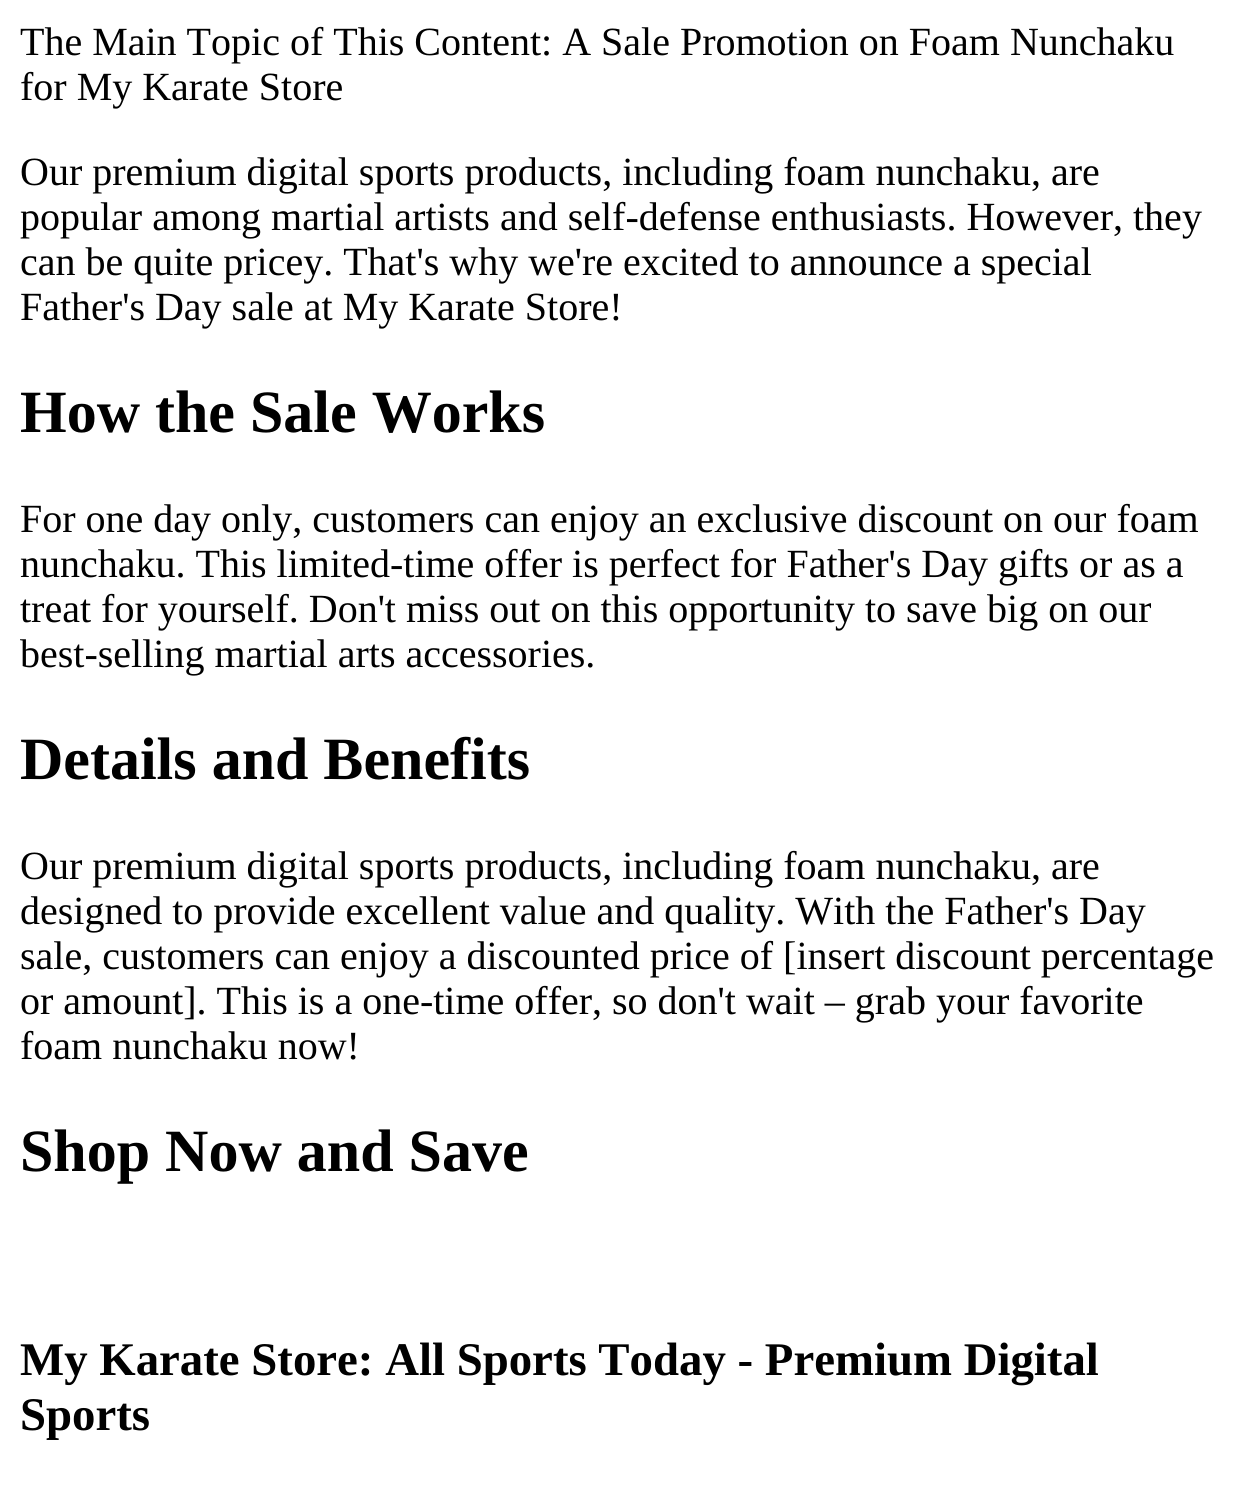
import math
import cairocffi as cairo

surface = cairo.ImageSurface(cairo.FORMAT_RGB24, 1238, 1512)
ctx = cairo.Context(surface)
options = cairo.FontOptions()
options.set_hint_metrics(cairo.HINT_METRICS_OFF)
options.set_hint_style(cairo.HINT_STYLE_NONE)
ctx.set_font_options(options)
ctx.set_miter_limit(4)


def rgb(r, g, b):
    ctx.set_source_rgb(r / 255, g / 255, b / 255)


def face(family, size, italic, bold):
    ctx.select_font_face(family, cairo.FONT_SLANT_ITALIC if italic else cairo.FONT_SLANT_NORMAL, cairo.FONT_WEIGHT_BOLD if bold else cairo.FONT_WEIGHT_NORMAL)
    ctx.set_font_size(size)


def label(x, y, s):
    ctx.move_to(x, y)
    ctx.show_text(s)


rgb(255, 255, 255)
ctx.paint()
face('Liberation Serif', 40, 0, 0)
rgb(0, 0, 0)
label(20, 55, 'The Main Topic of This Content: A Sale Promotion on Foam Nunchaku')
label(20, 100, 'for My Karate Store')
label(20, 185, 'Our premium digital sports products, including foam nunchaku, are')
label(20, 230, 'popular among martial artists and self-defense enthusiasts. However, they')
label(20, 275, 'can be quite pricey. That\'s why we\'re excited to announce a special')
label(20, 320, 'Father\'s Day sale at My Karate Store!')
face('Liberation Serif', 60, 0, 1)
label(20, 432, 'How the Sale Works')
face('Liberation Serif', 40, 0, 0)
label(20, 532, 'For one day only, customers can enjoy an exclusive discount on our foam')
label(20, 577, 'nunchaku. This limited-time offer is perfect for Father\'s Day gifts or as a')
label(20, 622, 'treat for yourself. Don\'t miss out on this opportunity to save big on our')
label(20, 667, 'best-selling martial arts accessories.')
face('Liberation Serif', 60, 0, 1)
label(20, 779, 'Details and Benefits')
face('Liberation Serif', 40, 0, 0)
label(20, 879, 'Our premium digital sports products, including foam nunchaku, are')
label(20, 924, 'designed to provide excellent value and quality. With the Father\'s Day')
label(20, 969, 'sale, customers can enjoy a discounted price of [insert discount percentage')
label(20, 1014, 'or amount]. This is a one-time offer, so don\'t wait – grab your favorite')
label(20, 1059, 'foam nunchaku now!')
face('Liberation Serif', 60, 0, 1)
label(20, 1171, 'Shop Now and Save')
face('Liberation Serif', 46.8, 0, 1)
label(20, 1375, 'My Karate Store: All Sports Today - Premium Digital')
label(20, 1430, 'Sports')
surface.write_to_png('render.png')
